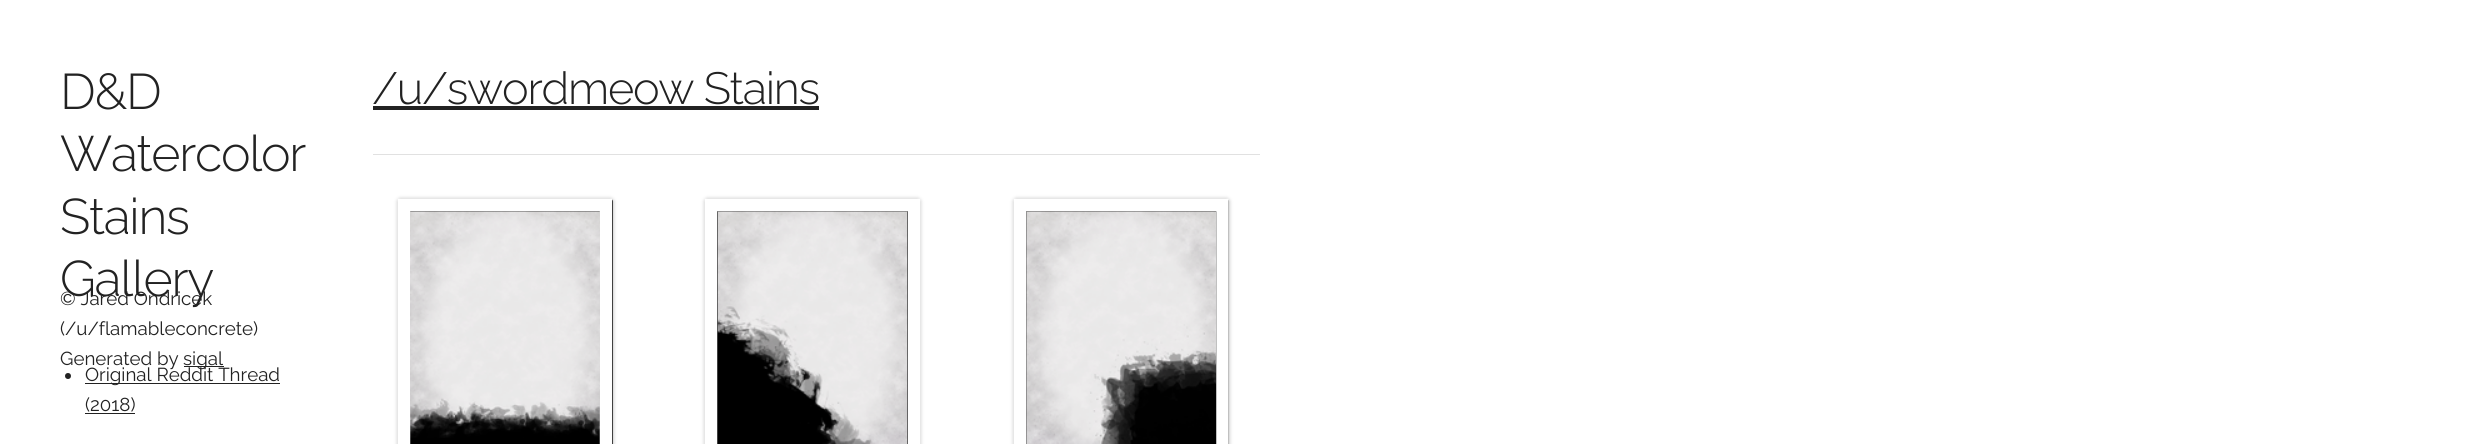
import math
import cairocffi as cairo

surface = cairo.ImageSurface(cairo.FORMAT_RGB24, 2486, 444)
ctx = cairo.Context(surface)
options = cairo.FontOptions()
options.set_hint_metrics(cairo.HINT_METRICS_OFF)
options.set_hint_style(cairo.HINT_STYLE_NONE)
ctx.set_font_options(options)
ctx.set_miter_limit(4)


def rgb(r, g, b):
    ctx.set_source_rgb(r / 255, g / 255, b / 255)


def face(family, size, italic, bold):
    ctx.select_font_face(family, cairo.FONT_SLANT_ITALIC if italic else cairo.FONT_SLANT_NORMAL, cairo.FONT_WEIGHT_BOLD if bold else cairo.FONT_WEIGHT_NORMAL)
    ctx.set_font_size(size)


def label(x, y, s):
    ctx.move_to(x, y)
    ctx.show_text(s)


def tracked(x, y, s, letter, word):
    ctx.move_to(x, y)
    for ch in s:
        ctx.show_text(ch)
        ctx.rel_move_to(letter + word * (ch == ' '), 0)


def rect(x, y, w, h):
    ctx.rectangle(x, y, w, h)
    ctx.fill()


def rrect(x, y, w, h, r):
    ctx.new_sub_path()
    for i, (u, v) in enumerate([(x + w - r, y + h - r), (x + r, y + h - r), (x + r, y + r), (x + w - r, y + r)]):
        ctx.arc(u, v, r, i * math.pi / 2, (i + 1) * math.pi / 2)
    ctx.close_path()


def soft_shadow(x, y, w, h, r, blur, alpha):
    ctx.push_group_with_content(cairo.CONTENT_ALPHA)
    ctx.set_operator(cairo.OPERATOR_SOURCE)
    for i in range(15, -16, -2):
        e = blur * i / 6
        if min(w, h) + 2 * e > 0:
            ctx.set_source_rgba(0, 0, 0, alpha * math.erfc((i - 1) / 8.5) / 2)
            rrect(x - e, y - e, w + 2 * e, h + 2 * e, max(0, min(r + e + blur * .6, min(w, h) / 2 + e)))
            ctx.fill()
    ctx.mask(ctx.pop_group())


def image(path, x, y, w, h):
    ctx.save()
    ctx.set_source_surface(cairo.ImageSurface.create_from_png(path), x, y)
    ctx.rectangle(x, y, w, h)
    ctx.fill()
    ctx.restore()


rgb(255, 255, 255)
ctx.paint()
face('Raleway Light', 50, 0, 0)
rgb(34, 34, 34)
tracked(60, 109, 'D&D', -1.25, 0)
tracked(60, 171, 'Watercolor', -1.25, 0)
tracked(60, 234, 'Stains', -1.25, 0)
tracked(60, 296, 'Gallery', -1.25, 0)
face('Raleway', 18.75, 0, 0)
label(60, 305, '© Jared Ondricek')
label(60, 335, '(/u/flamableconcrete)')
label(60, 365, 'Generated by')
rect(184, 366, 40, 1)
label(183, 365, 'sigal')
ctx.new_path()
ctx.arc(68, 376, 3, 0, 2 * math.pi)
ctx.fill()
rect(85, 383, 195, 1)
label(85, 381, 'Original Reddit Thread')
label(85, 411, '(2018)')
rect(85, 413, 50, 1)
face('Raleway Light', 45, 0, 0)
tracked(372, 104, '/u/swordmeow Stains', -1.25, 0)
rect(373, 106, 446, 4)
rgb(225, 225, 225)
rect(373, 154, 887, 1)
rgb(177, 177, 177)
soft_shadow(398, 199, 215, 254, 2.5, 2, 1)
rgb(0, 0, 0)
rrect(398, 199, 215, 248, 2.5)
ctx.fill()
ctx.new_path()
ctx.move_to(404, 205)
ctx.line_to(606, 205)
ctx.line_to(606, 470)
ctx.line_to(404, 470)
ctx.close_path()
rgb(255, 255, 255)
ctx.set_line_width(12.5)
ctx.stroke()
image('image0.png', 410, 211, 190, 227)
rgb(177, 177, 177)
soft_shadow(705, 199, 215, 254, 2.5, 2, 1)
rgb(0, 0, 0)
rect(717, 211, 191, 233)
ctx.new_path()
ctx.move_to(711, 205)
ctx.line_to(914, 205)
ctx.line_to(914, 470)
ctx.line_to(711, 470)
ctx.close_path()
rgb(255, 255, 255)
ctx.stroke()
image('image1.png', 717, 211, 191, 233)
rgb(177, 177, 177)
soft_shadow(1014, 199, 215, 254, 2.5, 2, 1)
rgb(0, 0, 0)
rrect(1014, 199, 215, 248, 2.5)
ctx.fill()
ctx.new_path()
ctx.move_to(1020, 205)
ctx.line_to(1222.5, 205)
ctx.line_to(1222.5, 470)
ctx.line_to(1020, 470)
ctx.close_path()
rgb(255, 255, 255)
ctx.stroke()
image('image2.png', 1026, 211, 190, 233)
surface.write_to_png('render.png')
